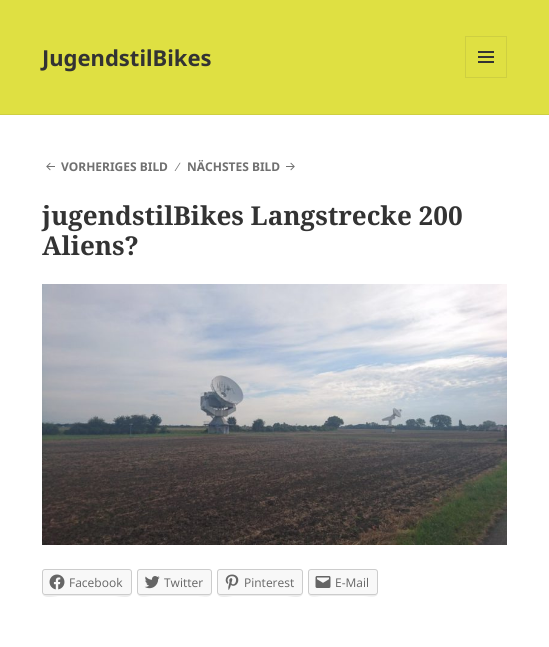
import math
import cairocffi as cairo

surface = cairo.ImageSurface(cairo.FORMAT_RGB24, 549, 647)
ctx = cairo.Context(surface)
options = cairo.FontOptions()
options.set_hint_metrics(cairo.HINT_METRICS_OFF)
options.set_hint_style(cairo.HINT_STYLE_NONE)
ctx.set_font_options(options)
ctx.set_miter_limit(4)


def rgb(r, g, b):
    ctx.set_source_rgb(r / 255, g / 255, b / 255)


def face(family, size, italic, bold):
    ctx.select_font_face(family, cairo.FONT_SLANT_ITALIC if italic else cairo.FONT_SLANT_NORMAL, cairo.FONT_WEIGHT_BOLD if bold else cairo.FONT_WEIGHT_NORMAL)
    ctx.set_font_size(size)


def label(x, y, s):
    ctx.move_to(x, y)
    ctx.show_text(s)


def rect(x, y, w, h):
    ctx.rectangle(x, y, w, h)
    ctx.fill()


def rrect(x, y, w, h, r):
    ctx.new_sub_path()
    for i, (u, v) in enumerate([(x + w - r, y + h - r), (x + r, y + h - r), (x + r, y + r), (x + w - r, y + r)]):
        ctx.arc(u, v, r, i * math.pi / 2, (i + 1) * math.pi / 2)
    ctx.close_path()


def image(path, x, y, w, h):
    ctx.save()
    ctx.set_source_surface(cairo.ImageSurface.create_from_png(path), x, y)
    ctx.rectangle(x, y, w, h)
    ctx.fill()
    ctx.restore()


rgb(223, 224, 66)
ctx.paint()
rgb(206, 207, 65)
rect(0, 114, 549, 1)
face('Noto Sans', 22, 0, 1)
rgb(51, 51, 51)
label(42, 66, 'JugendstilBikes')
ctx.rectangle(465.5, 36.5, 41, 41)
rgb(206, 207, 65)
ctx.set_line_width(1)
ctx.stroke()
image('image0.png', 478, 51, 16, 12)
rgb(255, 255, 255)
rect(0, 115, 549, 532)
image('image1.png', 46, 162, 9, 9)
face('Noto Sans', 12, 0, 1)
rgb(112, 112, 112)
label(61, 171, 'VORHERIGES BILD')
face('Liberation Sans', 12, 0, 0)
label(177, 171, '∕')
face('Noto Sans', 12, 0, 1)
label(187, 171, 'NÄCHSTES BILD')
image('image2.png', 286, 162, 9, 9)
face('Noto Serif', 26, 0, 1)
rgb(51, 51, 51)
label(42, 225, 'jugendstilBikes Langstrecke 200')
label(42, 255, 'Aliens?')
image('image3.png', 42, 284, 465, 261)
rgb(235, 235, 235)
ctx.new_path()
ctx.move_to(42, 592)
ctx.curve_to(42, 600, 55, 596, 59, 596)
ctx.line_to(115, 596)
ctx.curve_to(119, 596, 132, 600, 132, 592)
ctx.curve_to(132, 594, 131, 595, 129, 595)
ctx.line_to(45, 595)
ctx.curve_to(43, 595, 42, 594, 42, 592)
ctx.close_path()
ctx.fill()
rgb(248, 248, 248)
rrect(42.5, 569.5, 89, 25, 2.5)
ctx.fill_preserve()
rgb(204, 204, 204)
ctx.stroke()
image('image4.png', 49, 574, 16, 16)
face('Open Sans', 12, 0, 0)
rgb(101, 101, 101)
label(69, 587, 'Facebook')
rgb(235, 235, 235)
ctx.new_path()
ctx.move_to(137, 592)
ctx.curve_to(137, 599, 147, 596, 152, 596)
ctx.line_to(198, 596)
ctx.curve_to(202, 596, 212, 599, 212, 592)
ctx.curve_to(212, 594, 211, 595, 209, 595)
ctx.line_to(140, 595)
ctx.curve_to(138, 595, 137, 594, 137, 592)
ctx.close_path()
ctx.fill()
rgb(248, 248, 248)
rrect(137.5, 569.5, 74, 25, 2.5)
ctx.fill_preserve()
rgb(204, 204, 204)
ctx.stroke()
image('image5.png', 144, 576, 16, 13)
rgb(101, 101, 101)
label(164, 587, 'Twitter')
rgb(235, 235, 235)
ctx.new_path()
ctx.move_to(217, 592)
ctx.curve_to(217, 600, 230, 596, 233, 596)
ctx.line_to(287, 596)
ctx.curve_to(290, 596, 303, 600, 303, 592)
ctx.curve_to(303, 594, 302, 595, 300, 595)
ctx.line_to(220, 595)
ctx.curve_to(218, 595, 217, 594, 217, 592)
ctx.close_path()
ctx.fill()
rgb(248, 248, 248)
rrect(217.5, 569.5, 85, 25, 2.5)
ctx.fill_preserve()
rgb(204, 204, 204)
ctx.stroke()
image('image6.png', 225, 574, 14, 16)
rgb(101, 101, 101)
label(244, 587, 'Pinterest')
rgb(235, 235, 235)
ctx.new_path()
ctx.move_to(308, 592)
ctx.curve_to(308, 599, 317, 596, 322, 596)
ctx.line_to(364, 596)
ctx.curve_to(369, 596, 378, 599, 378, 592)
ctx.curve_to(378, 594, 377, 595, 375, 595)
ctx.line_to(311, 595)
ctx.curve_to(309, 595, 308, 594, 308, 592)
ctx.close_path()
ctx.fill()
rgb(248, 248, 248)
rrect(308.5, 569.5, 69, 25, 2.5)
ctx.fill_preserve()
rgb(204, 204, 204)
ctx.stroke()
image('image7.png', 315, 576, 16, 12)
rgb(101, 101, 101)
label(335, 587, 'E-Mail')
surface.write_to_png('render.png')
